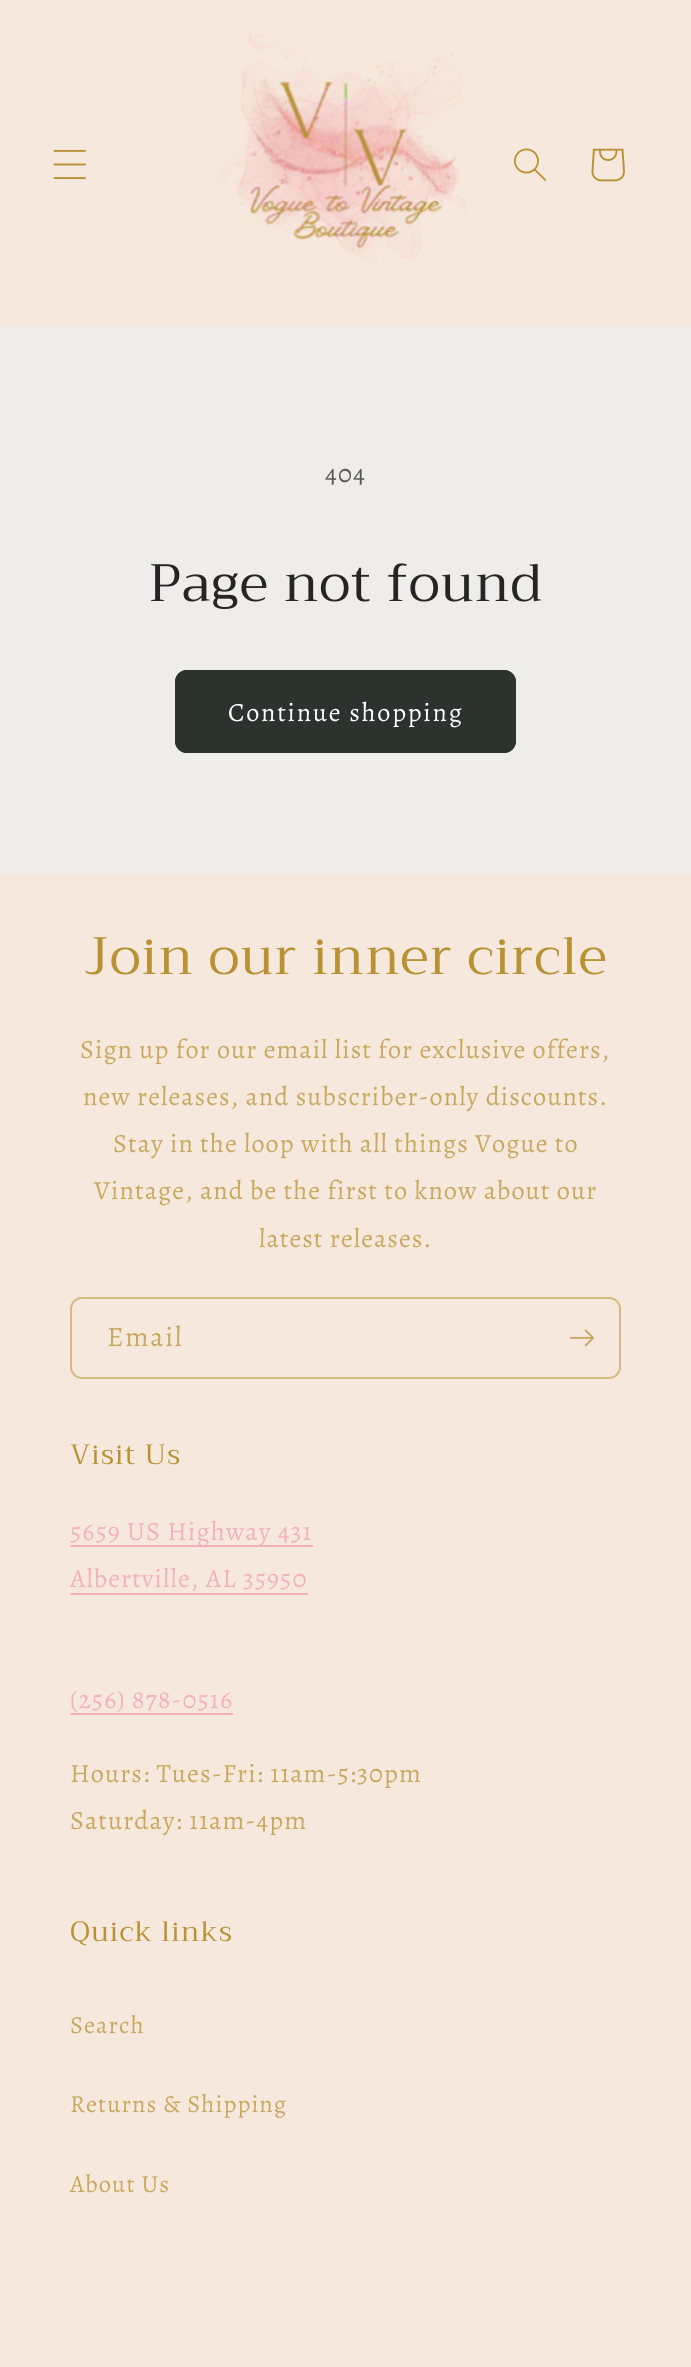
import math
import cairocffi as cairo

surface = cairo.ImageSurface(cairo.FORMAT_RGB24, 691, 2367)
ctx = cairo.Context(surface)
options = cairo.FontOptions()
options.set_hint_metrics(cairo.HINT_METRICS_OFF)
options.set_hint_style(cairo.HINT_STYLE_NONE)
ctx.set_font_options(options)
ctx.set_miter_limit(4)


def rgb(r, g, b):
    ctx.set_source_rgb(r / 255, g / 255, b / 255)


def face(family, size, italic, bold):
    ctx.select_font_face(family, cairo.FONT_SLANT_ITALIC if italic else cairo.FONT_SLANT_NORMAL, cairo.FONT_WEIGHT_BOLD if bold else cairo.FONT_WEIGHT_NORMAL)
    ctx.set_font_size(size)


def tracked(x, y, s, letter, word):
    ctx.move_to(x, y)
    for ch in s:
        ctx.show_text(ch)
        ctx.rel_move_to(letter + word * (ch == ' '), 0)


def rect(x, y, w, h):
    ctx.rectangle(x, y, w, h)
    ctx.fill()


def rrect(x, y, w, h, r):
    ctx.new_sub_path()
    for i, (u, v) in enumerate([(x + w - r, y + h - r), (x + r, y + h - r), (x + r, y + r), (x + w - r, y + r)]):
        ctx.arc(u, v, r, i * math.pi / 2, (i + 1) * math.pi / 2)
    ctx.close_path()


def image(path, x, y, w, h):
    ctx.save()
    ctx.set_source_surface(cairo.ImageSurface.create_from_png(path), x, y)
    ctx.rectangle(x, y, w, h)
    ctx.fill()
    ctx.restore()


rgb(239, 236, 236)
ctx.paint()
rgb(247, 232, 221)
rect(0, 0, 691, 327)
image('image0.png', 53, 149, 33, 31)
image('image1.png', 217, 31, 258, 237)
image('image2.png', 514, 148, 32, 33)
image('image3.png', 591, 148, 34, 34)
face('Alegreya', 26.25, 0, 0)
rgb(88, 87, 87)
tracked(325, 482, '404', 1.05, 0)
face('Trirong', 52.5, 0, 0)
rgb(37, 37, 37)
tracked(149, 601, 'Page not found', 1.05, 0)
rgb(44, 51, 47)
rrect(175, 670, 341, 83, 12)
ctx.fill()
rrect(176, 671, 339, 81, 11)
ctx.stroke()
face('Alegreya', 26.25, 0, 0)
rgb(255, 255, 255)
tracked(228, 721, 'Continue shopping', 1.75, 0)
rgb(247, 232, 221)
rect(0, 875, 691, 1492)
face('Trirong', 52.5, 0, 0)
rgb(185, 146, 53)
tracked(84, 974, 'Join our inner circle', 1.05, 0)
face('Alegreya', 26.25, 0, 0)
rgb(201, 168, 95)
tracked(80, 1058, 'Sign up for our email list for exclusive offers,', 1.05, 0)
tracked(83, 1105, 'new releases, and subscriber-only discounts.', 1.05, 0)
tracked(113, 1152, 'Stay in the loop with all things Vogue to', 1.05, 0)
tracked(94, 1199, 'Vintage, and be the first to know about our', 1.05, 0)
tracked(259, 1247, 'latest releases.', 1.05, 0)
rrect(71, 1298, 549, 80, 11)
rgb(213, 185, 129)
ctx.stroke()
face('Alegreya', 28, 0, 0)
rgb(201, 168, 95)
tracked(107, 1346, 'Email', 1.75, 0)
image('image4.png', 569, 1329, 25, 18)
face('Trirong', 28, 0, 0)
rgb(185, 146, 53)
tracked(70, 1464, 'Visit Us', 1.05, 0)
rgb(243, 178, 186)
rect(70, 1545, 243, 2)
face('Alegreya', 26.25, 0, 0)
tracked(70, 1540, '5659 US Highway 431', 1.05, 0)
tracked(70, 1587, 'Albertville, AL 35950', 1.05, 0)
rect(70, 1593, 238, 2)
tracked(70, 1708, '(256) 878-0516', 1.05, 0)
rect(70, 1713, 163, 2)
rgb(201, 168, 95)
tracked(70, 1782, 'Hours: Tues-Fri: 11am-5:30pm', 1.05, 0)
tracked(70, 1829, 'Saturday: 11am-4pm', 1.05, 0)
face('Trirong', 28, 0, 0)
rgb(185, 146, 53)
tracked(70, 1941, 'Quick links', 1.05, 0)
face('Alegreya', 24.5, 0, 0)
rgb(201, 168, 95)
tracked(70, 2033, 'Search', 1.05, 0)
tracked(70, 2112, 'Returns & Shipping', 1.05, 0)
tracked(70, 2192, 'About Us', 1.05, 0)
surface.write_to_png('render.png')
